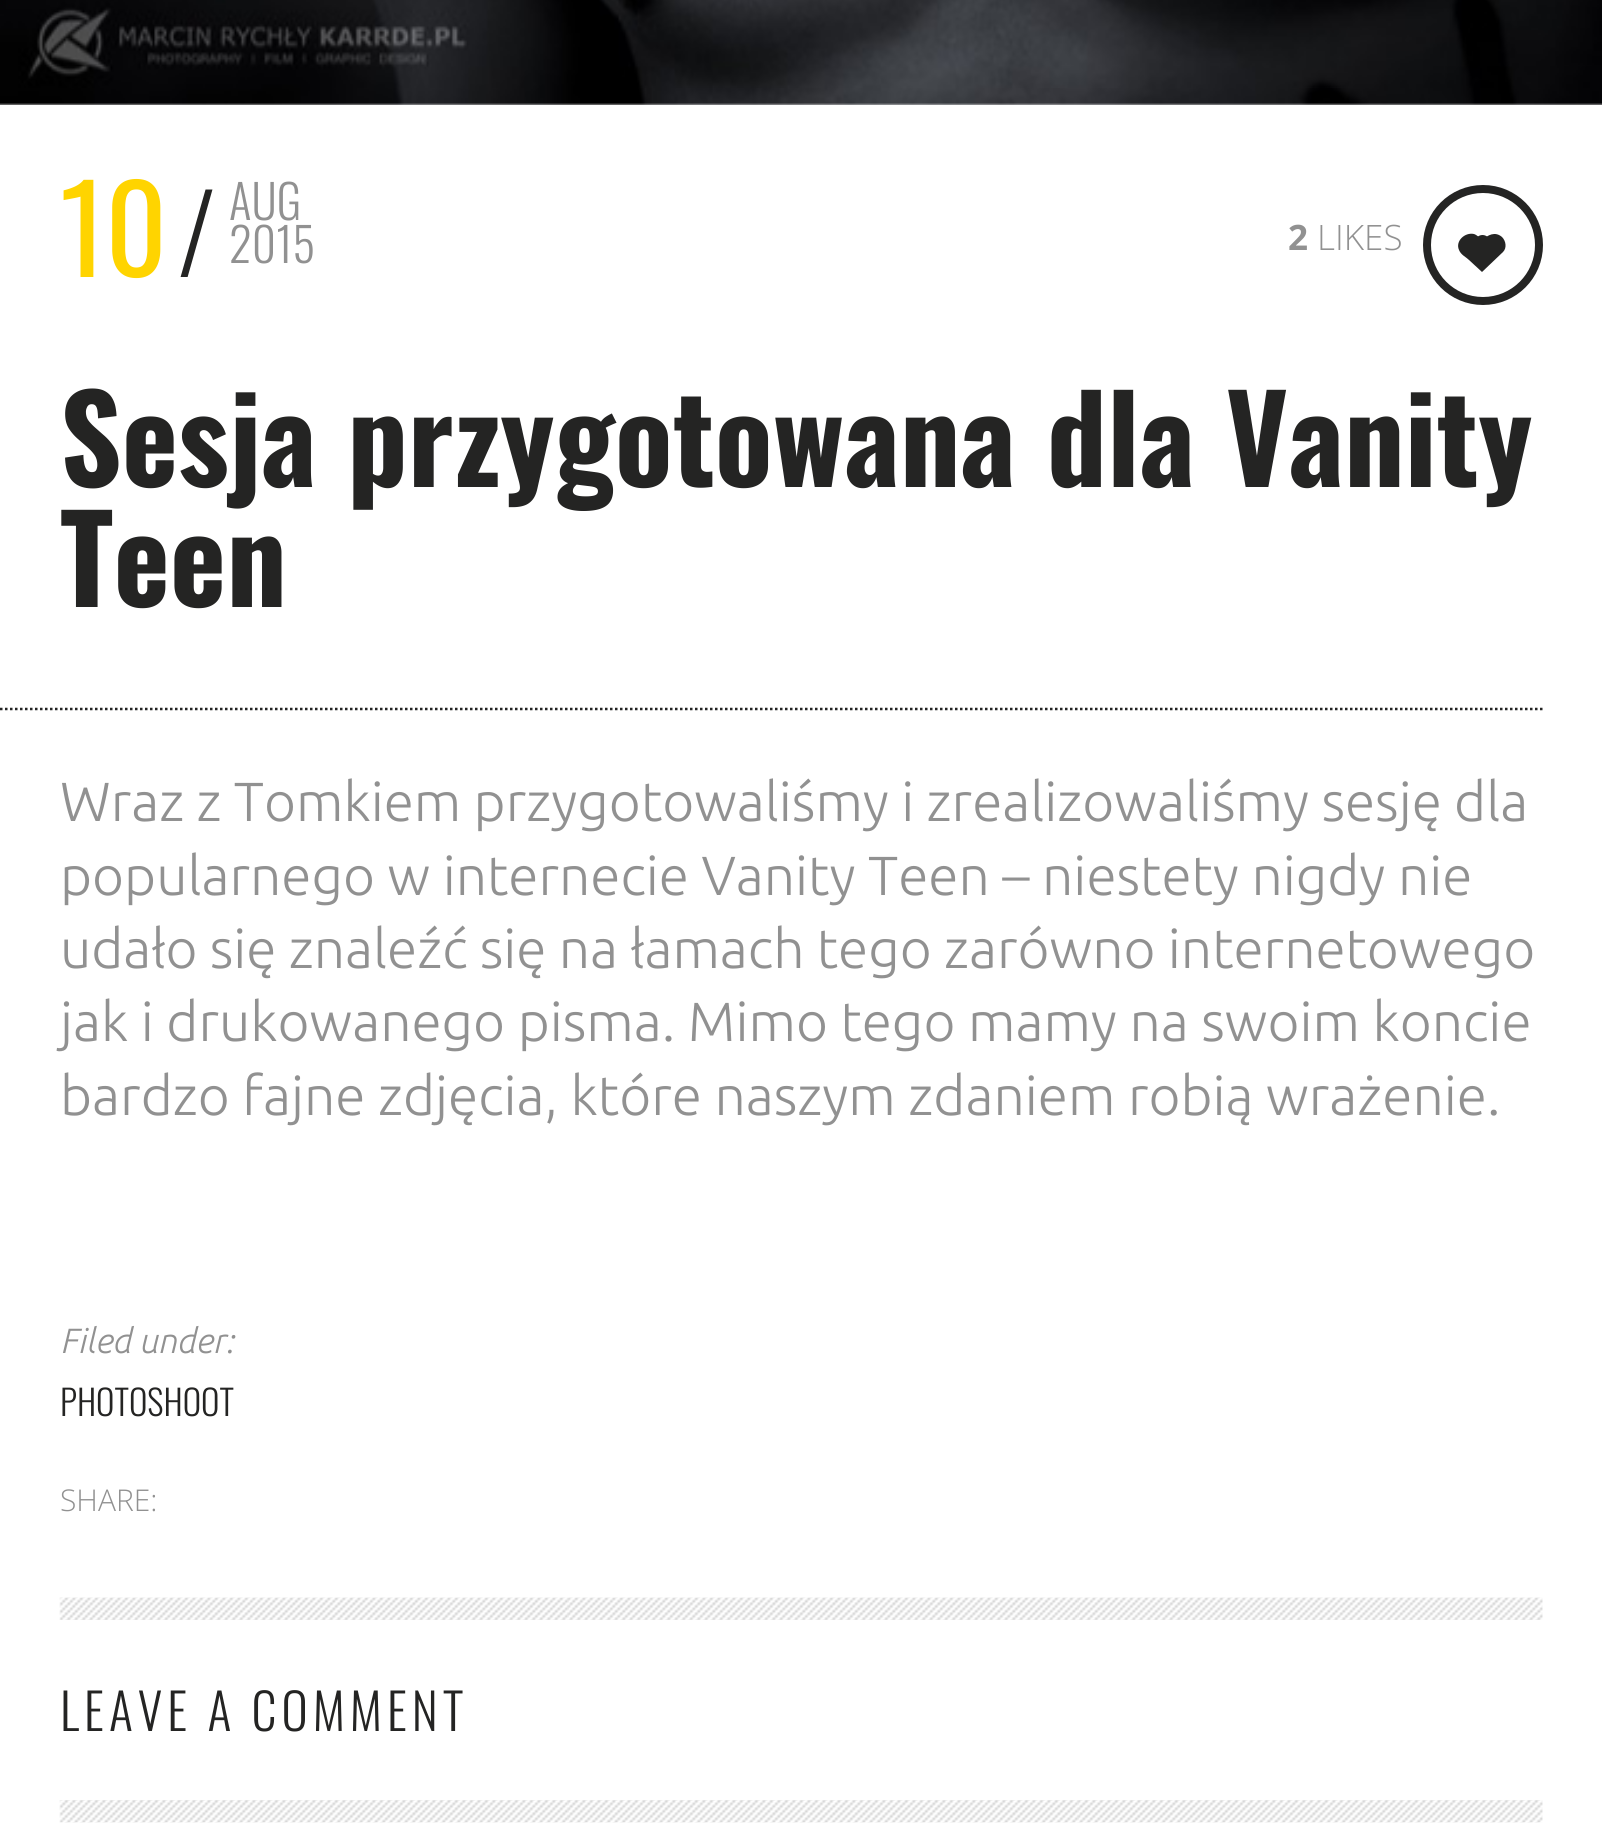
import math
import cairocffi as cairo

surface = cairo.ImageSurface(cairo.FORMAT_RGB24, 1602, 1836)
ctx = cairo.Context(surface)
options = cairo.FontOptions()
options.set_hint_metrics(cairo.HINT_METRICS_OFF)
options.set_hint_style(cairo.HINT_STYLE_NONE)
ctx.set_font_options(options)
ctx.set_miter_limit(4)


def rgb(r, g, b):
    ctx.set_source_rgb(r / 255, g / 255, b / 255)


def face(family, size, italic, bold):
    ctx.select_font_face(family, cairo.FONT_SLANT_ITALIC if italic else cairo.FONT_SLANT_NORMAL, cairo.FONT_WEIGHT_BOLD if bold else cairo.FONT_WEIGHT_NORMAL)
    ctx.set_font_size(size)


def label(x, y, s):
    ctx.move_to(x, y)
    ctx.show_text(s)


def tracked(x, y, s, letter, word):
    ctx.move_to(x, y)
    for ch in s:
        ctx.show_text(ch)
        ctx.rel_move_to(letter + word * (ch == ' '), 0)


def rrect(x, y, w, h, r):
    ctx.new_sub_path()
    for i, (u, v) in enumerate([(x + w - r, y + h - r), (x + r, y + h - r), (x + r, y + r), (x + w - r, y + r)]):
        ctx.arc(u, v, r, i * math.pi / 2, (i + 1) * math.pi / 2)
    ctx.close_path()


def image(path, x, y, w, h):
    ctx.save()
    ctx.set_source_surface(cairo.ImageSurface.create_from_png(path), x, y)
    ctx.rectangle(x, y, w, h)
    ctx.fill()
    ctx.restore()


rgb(255, 255, 255)
ctx.paint()
image('image0.png', 0, 0, 1602, 105)
face('Oswald', 120, 0, 0)
rgb(255, 212, 0)
label(60, 277, '10')
face('Oswald Light', 108, 0, 0)
rgb(36, 36, 35)
label(178, 277, '/')
face('Oswald Light', 47, 0, 0)
rgb(145, 145, 145)
label(229, 220, 'AUG')
label(229, 263, '2015')
face('Oswald', 120, 0, 1)
rgb(36, 36, 35)
label(60, 487, 'Sesja przygotowana dla Vanity')
label(60, 607, 'Teen')
ctx.new_path()
ctx.move_to(-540, 709)
ctx.line_to(1542.5, 709)
ctx.set_line_width(2.5)
ctx.set_dash([2.5, 2.5])
ctx.stroke()
face('Open Sans', 35, 0, 1)
rgb(145, 145, 145)
label(1288, 250, '2')
face('Open Sans Light', 35, 0, 0)
label(1317, 250, 'LIKES')
ctx.new_path()
ctx.arc(1483, 245, 56, 0, 2 * math.pi)
rgb(36, 36, 35)
ctx.set_line_width(8)
ctx.set_dash([])
ctx.stroke()
rrect(1475, 235, 15, 18, 7.5)
ctx.fill()
ctx.new_path()
ctx.move_to(1502, 237)
ctx.curve_to(1506, 241, 1507, 248, 1503, 252)
ctx.line_to(1482, 272)
ctx.line_to(1469, 260)
ctx.curve_to(1466, 257, 1461, 255, 1459, 250)
ctx.curve_to(1455, 241, 1465, 232, 1474, 234)
ctx.curve_to(1477, 235, 1480, 238, 1482, 240)
ctx.curve_to(1488, 235, 1495, 231, 1502, 237)
ctx.close_path()
ctx.fill()
face('Ubuntu Light', 55, 0, 0)
rgb(145, 145, 145)
tracked(60, 821, 'Wraz z Tomkiem przygotowaliśmy i zrealizowaliśmy sesję dla', 0, -0.25)
label(60, 895, 'popularnego w internecie Vanity Teen – niestety nigdy nie')
tracked(60, 968, 'udało się znaleźć się na łamach tego zarówno internetowego', 0, -0.25)
label(60, 1041, 'jak i drukowanego pisma. Mimo tego mamy na swoim koncie')
label(60, 1115, 'bardzo fajne zdjęcia, które naszym zdaniem robią wrażenie.')
face('Ubuntu Light', 35, 1, 0)
label(60, 1353, 'Filed under:')
face('Oswald Light', 35, 0, 0)
rgb(36, 36, 35)
label(60, 1416, 'PHOTOSHOOT')
face('Open Sans Light', 30, 0, 0)
rgb(145, 145, 145)
label(60, 1511, 'SHARE:')
image('image1.png', 59, 1597, 1484, 23)
face('Oswald Light', 50, 0, 0)
rgb(36, 36, 35)
tracked(60, 1731, 'LEAVE A COMMENT', 5, 0)
image('image2.png', 59, 1800, 1484, 23)
surface.write_to_png('render.png')
